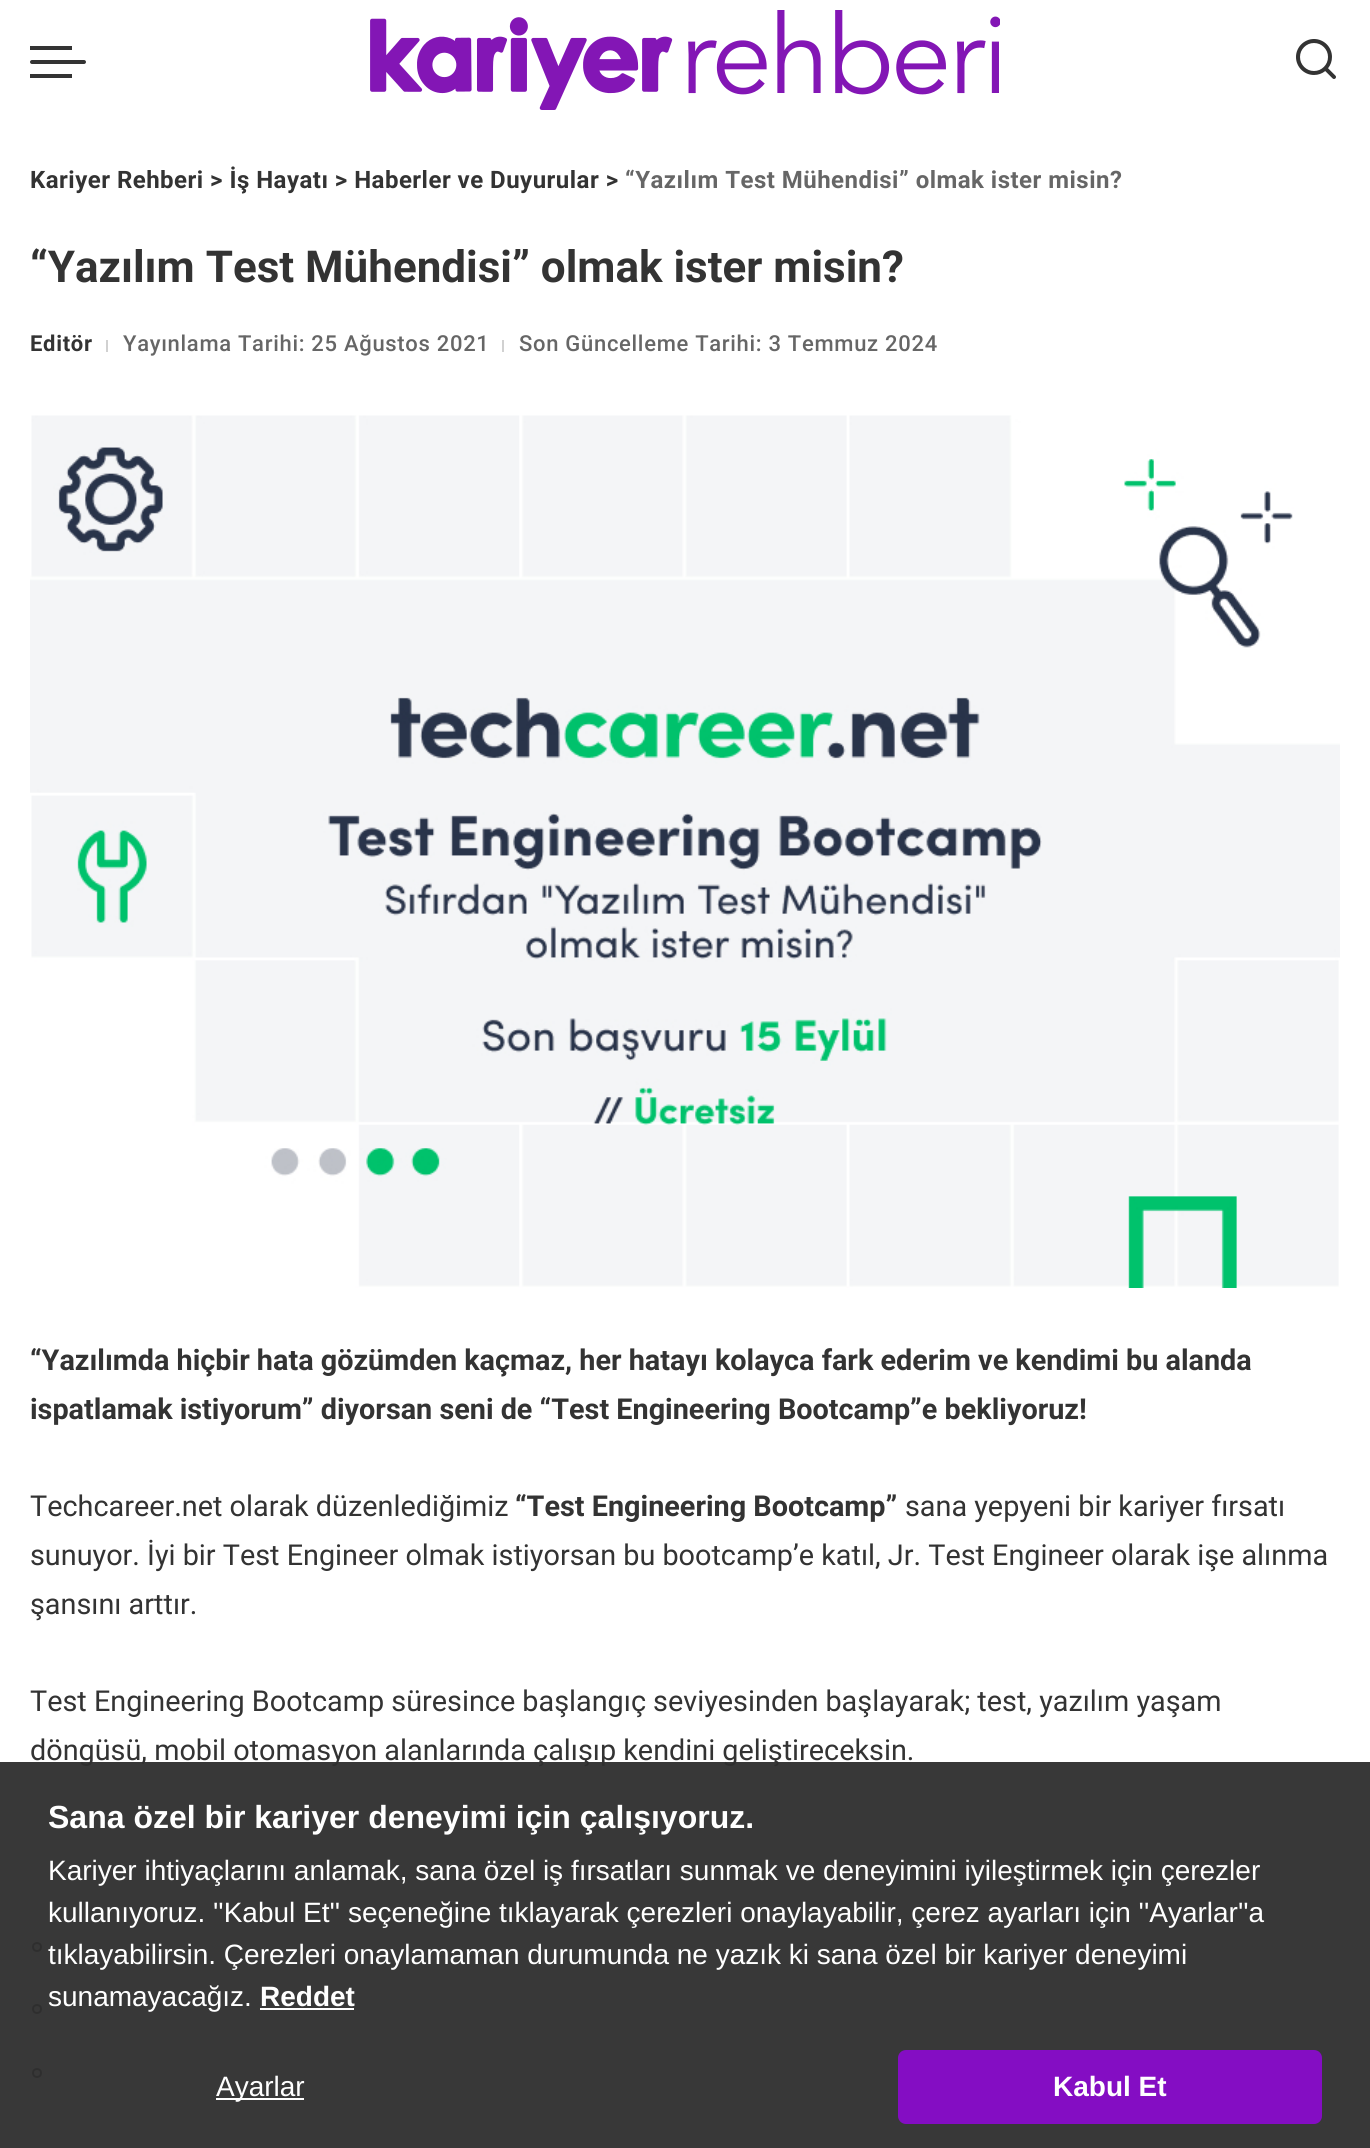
import math
import cairocffi as cairo

surface = cairo.ImageSurface(cairo.FORMAT_RGB24, 1370, 2148)
ctx = cairo.Context(surface)
options = cairo.FontOptions()
options.set_hint_metrics(cairo.HINT_METRICS_OFF)
options.set_hint_style(cairo.HINT_STYLE_NONE)
ctx.set_font_options(options)
ctx.set_miter_limit(4)


def rgb(r, g, b):
    ctx.set_source_rgb(r / 255, g / 255, b / 255)


def face(family, size, italic, bold):
    ctx.select_font_face(family, cairo.FONT_SLANT_ITALIC if italic else cairo.FONT_SLANT_NORMAL, cairo.FONT_WEIGHT_BOLD if bold else cairo.FONT_WEIGHT_NORMAL)
    ctx.set_font_size(size)


def label(x, y, s):
    ctx.move_to(x, y)
    ctx.show_text(s)


def tracked(x, y, s, letter, word):
    ctx.move_to(x, y)
    for ch in s:
        ctx.show_text(ch)
        ctx.rel_move_to(letter + word * (ch == ' '), 0)


def rect(x, y, w, h):
    ctx.rectangle(x, y, w, h)
    ctx.fill()


def rrect(x, y, w, h, r):
    ctx.new_sub_path()
    for i, (u, v) in enumerate([(x + w - r, y + h - r), (x + r, y + h - r), (x + r, y + r), (x + w - r, y + r)]):
        ctx.arc(u, v, r, i * math.pi / 2, (i + 1) * math.pi / 2)
    ctx.close_path()


def image(path, x, y, w, h):
    ctx.save()
    ctx.set_source_surface(cairo.ImageSurface.create_from_png(path), x, y)
    ctx.rectangle(x, y, w, h)
    ctx.fill()
    ctx.restore()


rgb(255, 255, 255)
ctx.paint()
rgb(51, 51, 51)
rrect(30, 60, 56, 4, 2)
ctx.fill()
rect(30, 46, 42, 4)
rect(30, 74, 42, 4)
image('image0.png', 370, 10, 630, 100)
image('image1.png', 1296, 39, 40, 40)
face('Roboto', 24, 0, 1)
tracked(30, 188, 'Kariyer Rehberi > İş Hayatı > Haberler ve Duyurular >', 0.48, 0)
rgb(102, 102, 102)
tracked(625, 188, '“Yazılım Test Mühendisi” olmak ister misin?', 0.48, 0)
face('Roboto', 44, 0, 1)
rgb(51, 51, 51)
label(30, 282, '“Yazılım Test Mühendisi” olmak ister misin?')
face('Roboto', 22, 0, 1)
tracked(30, 351, 'Editör', 0.7, 0)
rgb(209, 209, 209)
rect(106, 340, 2, 12)
face('Roboto Medium', 22, 0, 0)
rgb(102, 102, 102)
tracked(123, 351, 'Yayınlama Tarihi: 25 Ağustos 2021', 0.7, 0)
rgb(209, 209, 209)
rect(502, 340, 2, 12)
rgb(102, 102, 102)
tracked(519, 351, 'Son Güncelleme Tarihi: 3 Temmuz 2024', 0.7, 0)
image('image2.png', 30, 415, 1310, 873)
face('Roboto', 28.8, 0, 1)
rgb(51, 51, 51)
label(30, 1370, '“Yazılımda hiçbir hata gözümden kaçmaz, her hatayı kolayca fark ederim ve kendimi bu alanda')
label(30, 1419, 'ispatlamak istiyorum” diyorsan seni de “Test Engineering Bootcamp”e bekliyoruz!')
face('Roboto', 28.8, 0, 0)
label(30, 1516, 'Techcareer.net olarak düzenlediğimiz')
face('Roboto', 28.8, 0, 1)
label(515, 1516, '“Test Engineering Bootcamp”')
face('Roboto', 28.8, 0, 0)
label(905, 1516, 'sana yepyeni bir kariyer fırsatı')
label(30, 1565, 'sunuyor. İyi bir Test Engineer olmak istiyorsan bu bootcamp’e katıl, Jr. Test Engineer olarak işe alınma')
label(30, 1614, 'şansını arttır.')
label(30, 1711, 'Test Engineering Bootcamp süresince başlangıç seviyesinden başlayarak; test, yazılım yaşam')
label(30, 1760, 'döngüsü, mobil otomasyon alanlarında çalışıp kendini geliştireceksin.')
ctx.new_path()
ctx.arc(37, 1947, 4, 0, 2 * math.pi)
ctx.stroke()
ctx.arc(37, 2009, 4, 0, 2 * math.pi)
ctx.stroke()
ctx.arc(37, 2073, 4, 0, 2 * math.pi)
ctx.stroke()
ctx.set_source_rgba(0.184, 0.184, 0.184, 0.95)
rect(0, 1762, 1370, 386)
face('Liberation Sans', 32, 0, 1)
rgb(255, 255, 255)
label(48, 1828, 'Sana özel bir kariyer deneyimi için çalışıyoruz.')
face('Liberation Sans', 28, 0, 0)
label(48, 1880, 'Kariyer ihtiyaçlarını anlamak, sana özel iş fırsatları sunmak ve deneyimini iyileştirmek için çerezler')
label(48, 1922, 'kullanıyoruz. \'\'Kabul Et\'\' seçeneğine tıklayarak çerezleri onaylayabilir, çerez ayarları için \'\'Ayarlar\'\'a')
label(48, 1964, 'tıklayabilirsin. Çerezleri onaylamaman durumunda ne yazık ki sana özel bir kariyer deneyimi')
label(48, 2006, 'sunamayacağız.')
face('Liberation Sans', 28, 0, 1)
label(260, 2006, 'Reddet')
rect(260, 2008, 94, 2)
rect(216, 2098, 88, 2)
face('Liberation Sans', 28, 0, 0)
label(216, 2096, 'Ayarlar')
rgb(132, 13, 195)
rrect(898, 2050, 424, 74, 8)
ctx.fill()
face('Liberation Sans', 28, 0, 1)
rgb(255, 255, 255)
label(1053, 2096, 'Kabul Et')
surface.write_to_png('render.png')
